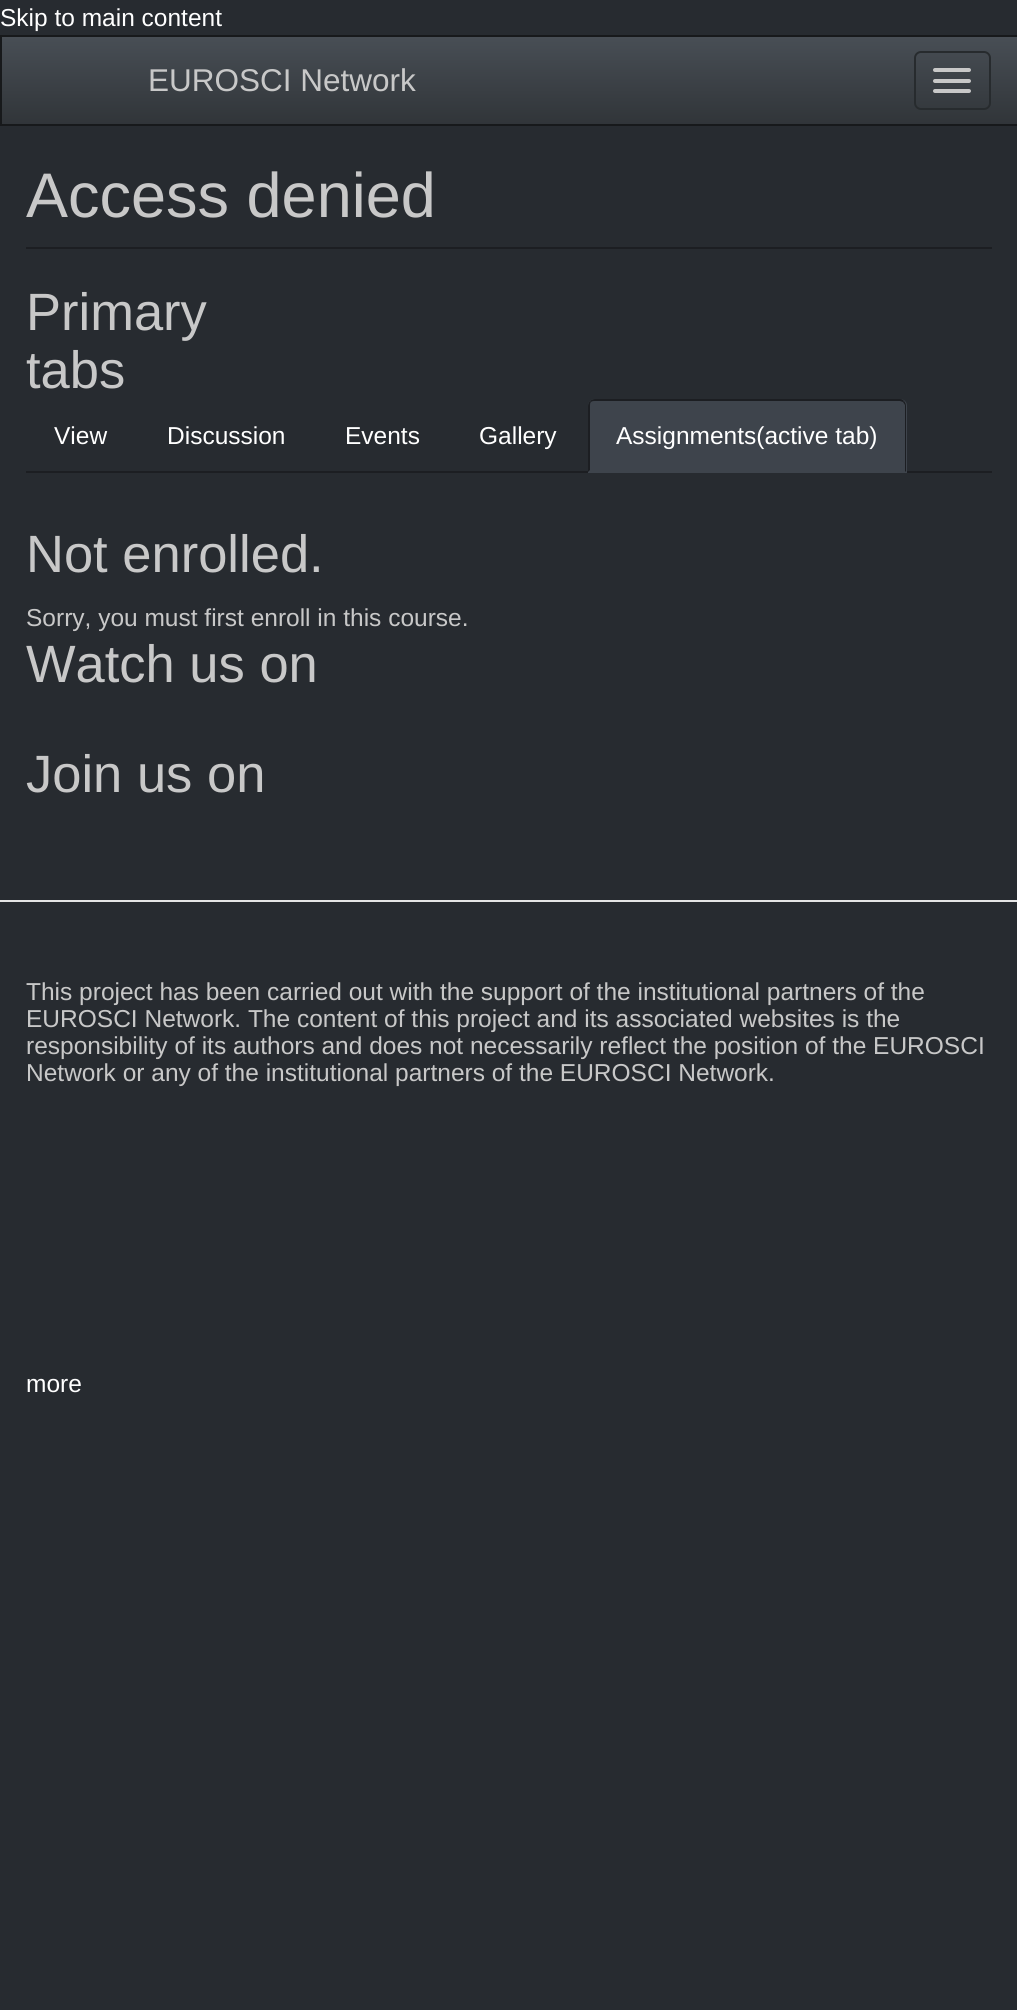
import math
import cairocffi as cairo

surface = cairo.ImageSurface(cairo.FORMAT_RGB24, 1017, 2010)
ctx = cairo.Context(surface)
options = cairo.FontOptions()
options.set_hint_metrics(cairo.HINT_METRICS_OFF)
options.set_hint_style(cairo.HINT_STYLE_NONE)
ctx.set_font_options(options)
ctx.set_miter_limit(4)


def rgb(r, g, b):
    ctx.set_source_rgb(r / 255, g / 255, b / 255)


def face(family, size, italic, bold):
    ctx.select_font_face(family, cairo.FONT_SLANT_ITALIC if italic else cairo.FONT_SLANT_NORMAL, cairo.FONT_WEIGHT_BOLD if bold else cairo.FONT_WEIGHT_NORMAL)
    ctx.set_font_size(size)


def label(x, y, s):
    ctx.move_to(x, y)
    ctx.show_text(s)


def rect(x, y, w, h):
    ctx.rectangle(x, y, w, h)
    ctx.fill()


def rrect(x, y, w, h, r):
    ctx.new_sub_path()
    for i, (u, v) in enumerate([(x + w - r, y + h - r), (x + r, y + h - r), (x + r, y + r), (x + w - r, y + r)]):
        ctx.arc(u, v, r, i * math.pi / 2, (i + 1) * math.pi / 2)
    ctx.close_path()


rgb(39, 43, 48)
ctx.paint()
face('Liberation Sans', 24.5, 0, 0)
rgb(255, 255, 255)
label(0, 26, 'Skip to main content')
gradient = cairo.LinearGradient(509, 37, 509, 124)
gradient.add_color_stop_rgba(0, 0.282, 0.306, 0.333, 1)
gradient.add_color_stop_rgba(0.6, 0.227, 0.247, 0.267, 1)
gradient.add_color_stop_rgba(1, 0.192, 0.208, 0.224, 1)
ctx.set_source(gradient)
rect(2, 37, 1015, 87)
ctx.rectangle(1, 36, 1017, 89)
rgb(23, 25, 27)
ctx.stroke()
face('Liberation Sans', 31.5, 0, 0)
rgb(200, 200, 200)
label(148, 91, 'EUROSCI Network')
rrect(915, 52, 75, 57, 6)
rgb(39, 43, 46)
ctx.stroke()
rgb(200, 200, 200)
rrect(933, 68, 38, 4, 2)
ctx.fill()
rrect(933, 79, 38, 4, 2)
ctx.fill()
rrect(933, 89, 38, 4, 2)
ctx.fill()
rgb(28, 30, 34)
rect(26, 247, 966, 2)
face('Liberation Sans', 63, 0, 0)
rgb(200, 200, 200)
label(26, 217, 'Access denied')
face('Liberation Sans', 52.5, 0, 0)
label(26, 330, 'Primary')
label(26, 388, 'tabs')
rgb(28, 30, 34)
rect(26, 471, 966, 2)
face('Liberation Sans', 24.5, 0, 0)
rgb(255, 255, 255)
label(54, 444, 'View')
label(167, 444, 'Discussion')
label(345, 444, 'Events')
label(479, 444, 'Gallery')
rgb(62, 68, 76)
ctx.new_path()
ctx.move_to(595, 399)
ctx.line_to(900, 399)
ctx.curve_to(904, 399, 907, 402, 907, 406)
ctx.line_to(907, 473)
ctx.line_to(588, 473)
ctx.line_to(588, 406)
ctx.curve_to(588, 402, 591, 399, 595, 399)
ctx.close_path()
ctx.fill()
rgb(28, 30, 34)
ctx.new_path()
ctx.move_to(595, 399)
ctx.curve_to(593, 399, 591, 400, 590, 401)
ctx.line_to(591, 402)
ctx.curve_to(592, 401, 594, 401, 595, 401)
ctx.line_to(900, 401)
ctx.line_to(903, 402)
ctx.line_to(904, 401)
ctx.curve_to(903, 400, 902, 399, 900, 399)
ctx.close_path()
ctx.fill()
ctx.new_path()
ctx.move_to(904, 401)
ctx.curve_to(905, 402, 906, 404, 906, 406)
ctx.line_to(906, 472)
ctx.line_to(905, 471)
ctx.line_to(905, 405)
ctx.line_to(903, 402)
ctx.close_path()
ctx.fill()
ctx.new_path()
ctx.move_to(588, 406)
ctx.line_to(588, 472)
ctx.line_to(590, 470)
ctx.line_to(590, 406)
ctx.curve_to(590, 404, 590, 403, 591, 402)
ctx.line_to(590, 401)
ctx.curve_to(589, 402, 588, 404, 588, 406)
ctx.close_path()
ctx.fill()
rgb(255, 255, 255)
label(616, 444, 'Assignments(active tab)')
face('Liberation Sans', 52.5, 0, 0)
rgb(200, 200, 200)
label(26, 572, 'Not enrolled.')
face('Liberation Sans', 24.5, 0, 0)
label(26, 626, 'Sorry, you must first enroll in this course.')
face('Liberation Sans', 52.5, 0, 0)
label(26, 682, 'Watch us on')
label(26, 792, 'Join us on')
rgb(229, 229, 229)
rect(0, 900, 1017, 2)
face('Liberation Sans', 24.5, 0, 0)
rgb(200, 200, 200)
label(26, 1000, 'This project has been carried out with the support of the institutional partners of the')
label(26, 1027, 'EUROSCI Network. The content of this project and its associated websites is the')
label(26, 1054, 'responsibility of its authors and does not necessarily reflect the position of the EUROSCI')
label(26, 1081, 'Network or any of the institutional partners of the EUROSCI Network.')
rgb(255, 255, 255)
label(26, 1392, 'more')
surface.write_to_png('render.png')
